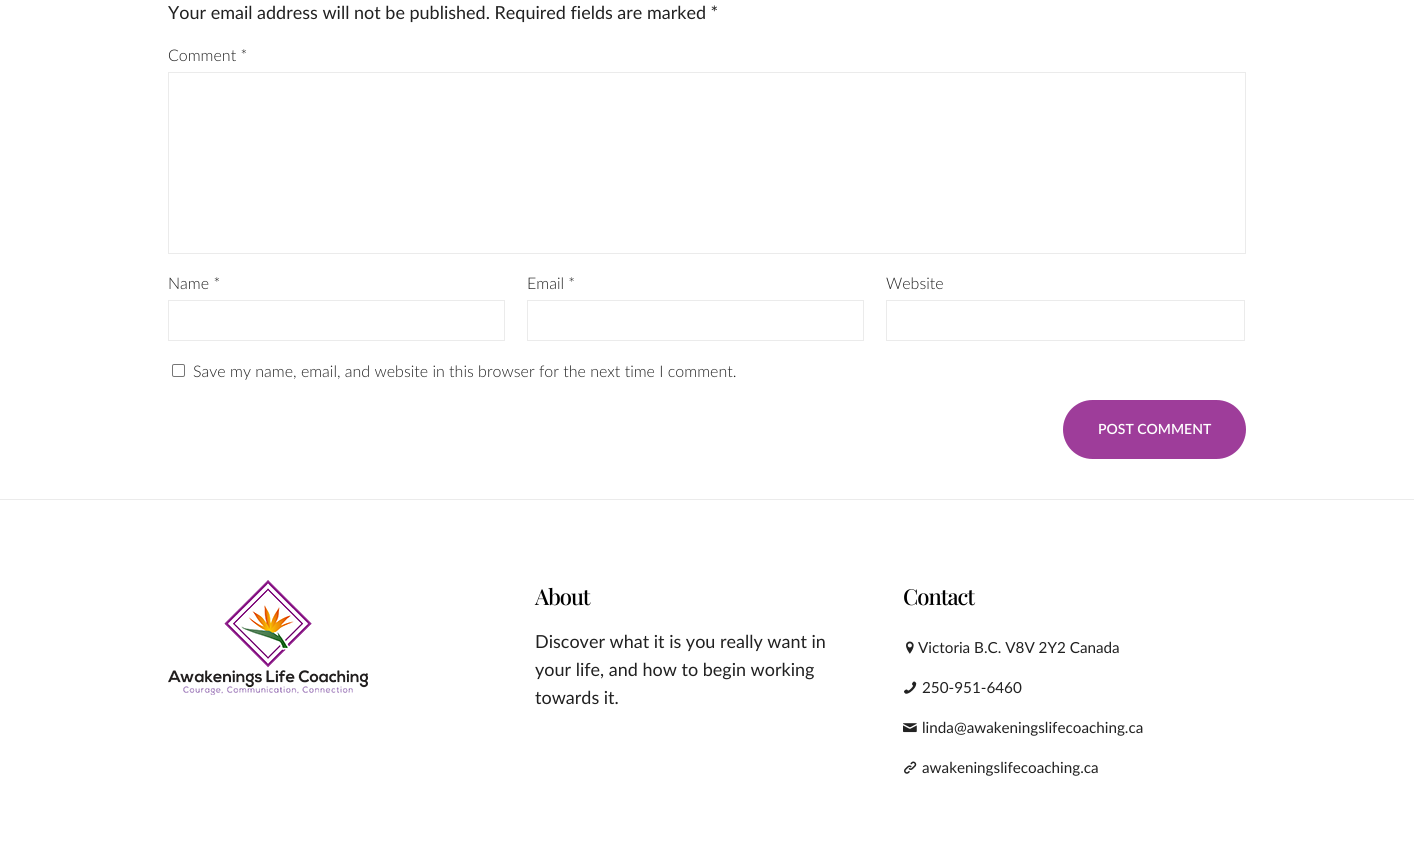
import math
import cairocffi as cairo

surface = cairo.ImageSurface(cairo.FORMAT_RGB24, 1414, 861)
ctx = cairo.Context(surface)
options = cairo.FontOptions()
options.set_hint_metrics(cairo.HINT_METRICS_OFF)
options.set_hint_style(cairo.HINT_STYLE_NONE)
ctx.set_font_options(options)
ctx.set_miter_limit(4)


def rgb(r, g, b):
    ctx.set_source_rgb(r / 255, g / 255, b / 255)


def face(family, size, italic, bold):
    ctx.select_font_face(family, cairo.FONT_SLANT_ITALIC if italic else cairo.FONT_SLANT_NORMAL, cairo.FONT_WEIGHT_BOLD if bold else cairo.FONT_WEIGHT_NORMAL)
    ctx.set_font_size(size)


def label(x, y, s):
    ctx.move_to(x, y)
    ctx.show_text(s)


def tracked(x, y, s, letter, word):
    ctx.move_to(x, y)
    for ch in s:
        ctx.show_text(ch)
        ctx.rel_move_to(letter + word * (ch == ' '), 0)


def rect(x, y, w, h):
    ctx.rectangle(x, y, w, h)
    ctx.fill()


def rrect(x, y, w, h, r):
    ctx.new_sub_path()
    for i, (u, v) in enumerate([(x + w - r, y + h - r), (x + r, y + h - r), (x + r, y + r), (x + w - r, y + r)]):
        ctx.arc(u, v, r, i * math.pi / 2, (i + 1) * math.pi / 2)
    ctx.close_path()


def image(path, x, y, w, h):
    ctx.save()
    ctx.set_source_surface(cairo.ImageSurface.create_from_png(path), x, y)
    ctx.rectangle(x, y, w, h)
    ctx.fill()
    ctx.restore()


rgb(255, 255, 255)
ctx.paint()
face('Lato', 18, 0, 0)
rgb(33, 33, 33)
label(168, 19, 'Your email address will not be published. Required fields are marked *')
face('Lato Light', 16, 0, 0)
label(168, 61, 'Comment *')
ctx.rectangle(168.5, 72.5, 1077, 181)
rgb(235, 235, 235)
ctx.set_line_width(1)
ctx.stroke()
rgb(33, 33, 33)
label(168, 289, 'Name *')
ctx.rectangle(168.5, 300.5, 336, 40)
rgb(235, 235, 235)
ctx.stroke()
rgb(33, 33, 33)
label(527, 289, 'Email *')
ctx.rectangle(527.5, 300.5, 336, 40)
rgb(235, 235, 235)
ctx.stroke()
rgb(33, 33, 33)
label(886, 289, 'Website')
ctx.rectangle(886.5, 300.5, 358, 40)
rgb(235, 235, 235)
ctx.stroke()
rrect(172.5, 364.5, 12, 12, 1.5)
rgb(118, 118, 118)
ctx.stroke()
rgb(33, 33, 33)
label(193, 377, 'Save my name, email, and website in this browser for the next time I comment.')
rgb(158, 61, 154)
rrect(1063, 400, 183, 59, 29.5)
ctx.fill()
face('Lato SemiBold', 14, 0, 0)
rgb(255, 255, 255)
label(1098, 434, 'POST COMMENT')
rgb(235, 235, 235)
rect(0, 499, 1414, 1)
image('image0.png', 168, 580, 200, 115)
face('Playfair Display Medium', 22, 0, 0)
rgb(0, 0, 0)
tracked(535, 605, 'About', -1, 0)
face('Lato', 18, 0, 0)
rgb(33, 33, 33)
label(535, 648, 'Discover what it is you really want in')
label(535, 676, 'your life, and how to begin working')
label(535, 704, 'towards it.')
face('Playfair Display Medium', 22, 0, 0)
rgb(0, 0, 0)
tracked(903, 605, 'Contact', -1, 0)
image('image1.png', 906, 641, 8, 13)
face('Lato', 15.25, 0, 0)
rgb(33, 33, 33)
label(918, 653, 'Victoria B.C. V8V 2Y2 Canada')
image('image2.png', 904, 681, 13, 13)
label(922, 693, '250-951-6460')
image('image3.png', 903, 723, 14, 10)
label(922, 733, 'linda@awakeningslifecoaching.ca')
image('image4.png', 904, 761, 13, 13)
label(922, 773, 'awakeningslifecoaching.ca')
surface.write_to_png('render.png')
